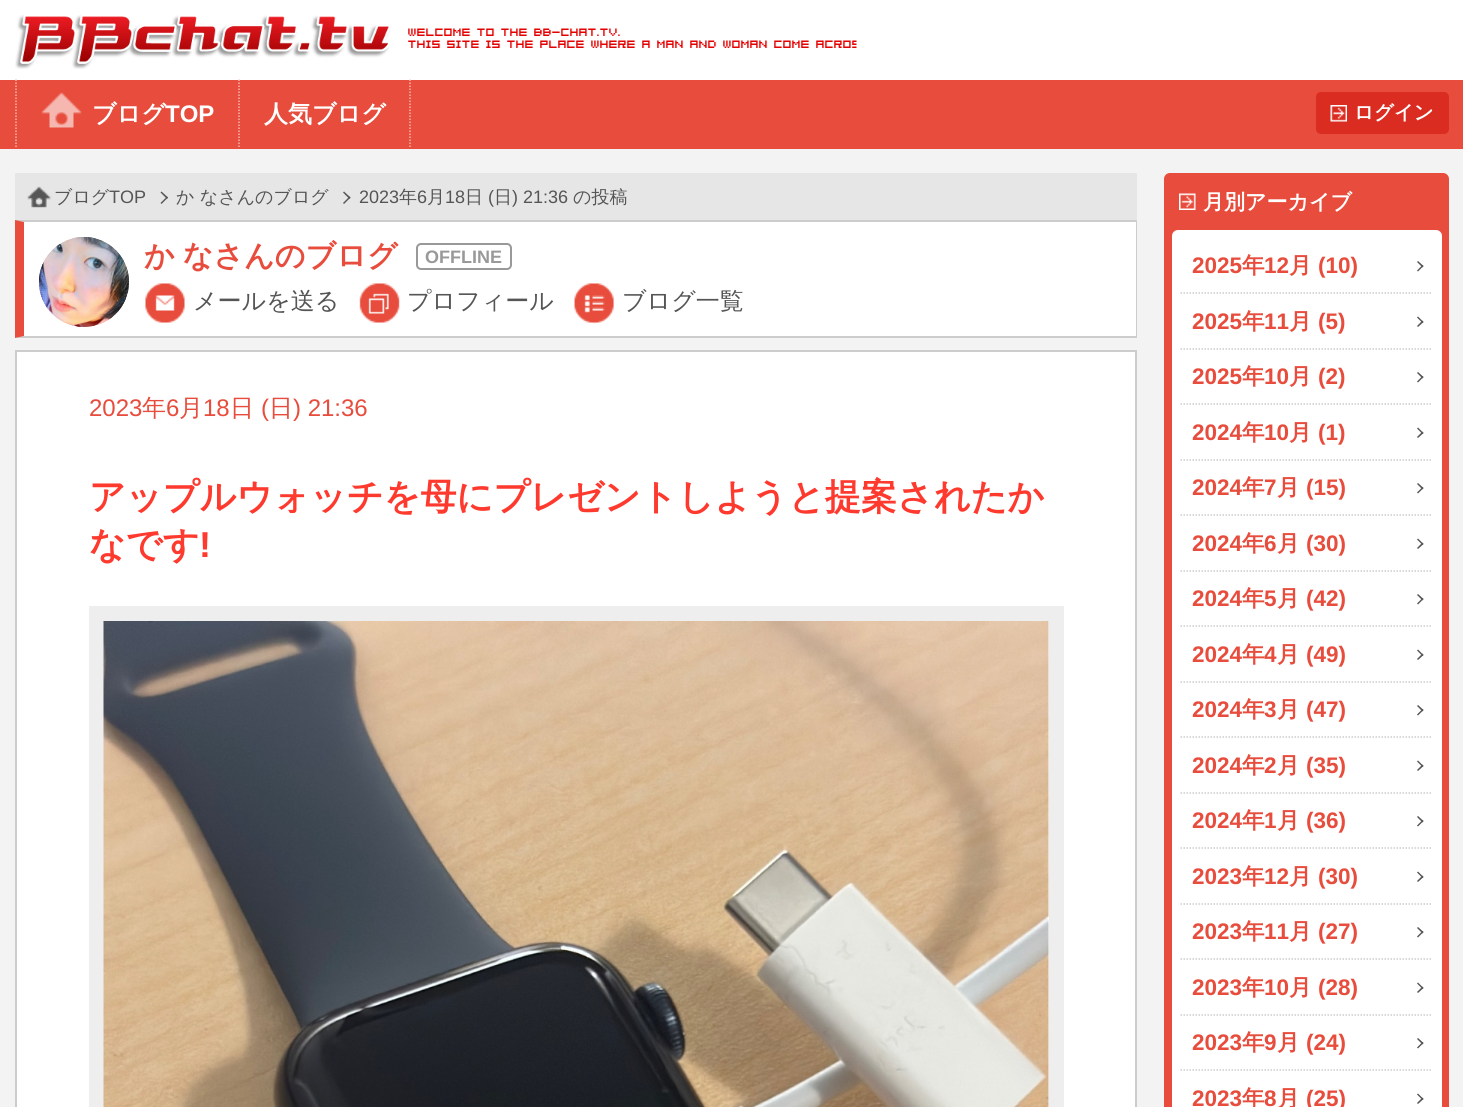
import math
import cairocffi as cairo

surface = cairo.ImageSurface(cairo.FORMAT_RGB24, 1463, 1107)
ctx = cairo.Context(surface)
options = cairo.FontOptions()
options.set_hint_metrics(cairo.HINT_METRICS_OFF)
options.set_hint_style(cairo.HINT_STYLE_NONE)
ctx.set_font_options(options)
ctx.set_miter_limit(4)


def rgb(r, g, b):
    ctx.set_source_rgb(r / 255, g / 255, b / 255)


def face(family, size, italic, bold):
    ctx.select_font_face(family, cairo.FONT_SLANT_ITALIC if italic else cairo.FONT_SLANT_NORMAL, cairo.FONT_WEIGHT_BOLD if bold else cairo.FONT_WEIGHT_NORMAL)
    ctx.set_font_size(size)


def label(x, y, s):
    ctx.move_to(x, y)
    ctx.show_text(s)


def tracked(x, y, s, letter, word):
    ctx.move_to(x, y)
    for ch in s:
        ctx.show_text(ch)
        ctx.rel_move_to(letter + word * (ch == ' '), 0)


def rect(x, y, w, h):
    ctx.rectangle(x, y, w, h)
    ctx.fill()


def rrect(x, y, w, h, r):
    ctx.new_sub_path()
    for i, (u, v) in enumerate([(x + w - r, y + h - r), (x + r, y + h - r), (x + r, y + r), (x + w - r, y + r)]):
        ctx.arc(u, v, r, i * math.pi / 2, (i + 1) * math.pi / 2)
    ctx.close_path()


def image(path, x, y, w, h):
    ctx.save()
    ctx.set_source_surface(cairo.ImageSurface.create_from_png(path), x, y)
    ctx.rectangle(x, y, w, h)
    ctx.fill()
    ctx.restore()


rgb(243, 243, 243)
ctx.paint()
rgb(255, 255, 255)
rect(0, 0, 1463, 80)
image('image0.png', 15, 15, 842, 54)
rgb(231, 76, 60)
rect(0, 80, 1463, 69)
ctx.new_path()
ctx.move_to(239, 79.5)
ctx.line_to(239, 148.5)
rgb(245, 183, 176)
ctx.set_line_width(1.5)
ctx.set_dash([1.5, 1.5])
ctx.stroke()
ctx.new_path()
ctx.move_to(16, 79.5)
ctx.line_to(16, 148.5)
ctx.stroke()
image('image1.png', 41, 92, 41, 36)
face('WenQuanYi Zen Hei', 24, 0, 1)
rgb(255, 255, 255)
label(92, 122, 'ブログ')
face('Liberation Sans', 24, 0, 1)
label(165, 122, 'TOP')
ctx.new_path()
ctx.move_to(410, 79.5)
ctx.line_to(410, 148.5)
rgb(245, 183, 176)
ctx.stroke()
face('WenQuanYi Zen Hei', 24, 0, 1)
rgb(255, 255, 255)
label(264, 122, '人気ブログ')
rgb(218, 44, 33)
rrect(1316, 92, 133, 42, 5)
ctx.fill()
image('image2.png', 1330, 105, 17, 17)
face('WenQuanYi Zen Hei', 19.5, 0, 1)
rgb(255, 255, 255)
label(1354, 119, 'ログイン')
rgb(230, 230, 230)
rect(15, 173, 1122, 48)
image('image3.png', 27, 186, 25, 22)
face('WenQuanYi Zen Hei Medium', 18, 0, 0)
rgb(85, 85, 85)
label(54, 203, 'ブログ')
face('Liberation Sans', 18, 0, 0)
label(109, 203, 'TOP')
ctx.new_path()
ctx.move_to(161.5, 191.5)
ctx.line_to(168, 197.5)
ctx.line_to(167, 199)
ctx.line_to(160.5, 192.5)
ctx.close_path()
ctx.fill()
ctx.new_path()
ctx.move_to(167, 196.5)
ctx.line_to(168, 197.5)
ctx.line_to(161.5, 204)
ctx.line_to(160.5, 203)
ctx.close_path()
ctx.fill()
face('WenQuanYi Zen Hei Medium', 18, 0, 0)
label(176, 203, 'か なさんのブログ')
ctx.new_path()
ctx.move_to(344, 191.5)
ctx.line_to(350.5, 197.5)
ctx.line_to(349.5, 199)
ctx.line_to(343, 192.5)
ctx.close_path()
ctx.fill()
ctx.new_path()
ctx.move_to(349.5, 196.5)
ctx.line_to(350.5, 197.5)
ctx.line_to(344, 204)
ctx.line_to(343, 203)
ctx.close_path()
ctx.fill()
face('Liberation Sans', 18, 0, 0)
label(359, 203, '2023')
face('WenQuanYi Zen Hei Medium', 18, 0, 0)
label(399, 203, '年')
face('Liberation Sans', 18, 0, 0)
label(417, 203, '6')
face('WenQuanYi Zen Hei Medium', 18, 0, 0)
label(427, 203, '月')
face('Liberation Sans', 18, 0, 0)
label(445, 203, '18')
face('WenQuanYi Zen Hei Medium', 18, 0, 0)
label(465, 203, '日')
face('Liberation Sans', 18, 0, 0)
label(488, 203, '(')
face('WenQuanYi Zen Hei Medium', 18, 0, 0)
label(494, 203, '日')
face('Liberation Sans', 18, 0, 0)
label(512, 203, ') 21:36')
face('WenQuanYi Zen Hei Medium', 18, 0, 0)
label(573, 203, 'の投稿')
rgb(255, 255, 255)
rect(24, 222, 1112, 114)
rgb(204, 204, 204)
ctx.new_path()
ctx.move_to(15, 220)
ctx.line_to(1137, 220)
ctx.line_to(1136, 222)
ctx.line_to(24, 222)
ctx.close_path()
ctx.fill()
rect(1136, 221, 1, 117)
ctx.new_path()
ctx.move_to(1137, 338)
ctx.line_to(15, 338)
ctx.line_to(24, 336)
ctx.line_to(1136, 336)
ctx.close_path()
ctx.fill()
rgb(231, 76, 60)
ctx.new_path()
ctx.move_to(15, 338)
ctx.line_to(15, 220)
ctx.line_to(24, 222)
ctx.line_to(24, 336)
ctx.close_path()
ctx.fill()
image('image4.png', 39, 237, 90, 90)
image('image5.png', 39, 237, 90, 90)
face('WenQuanYi Zen Hei', 30, 0, 1)
tracked(144, 266, 'か なさんのブログ', 0, -1)
rrect(417, 244, 94, 25, 4)
rgb(153, 153, 153)
ctx.set_line_width(2)
ctx.set_dash([])
ctx.stroke()
face('Liberation Sans', 18, 0, 1)
label(425, 263, 'OFFLINE')
image('image6.png', 145, 283, 40, 40)
face('WenQuanYi Zen Hei Medium', 24, 0, 0)
rgb(85, 85, 85)
label(193, 309, 'メールを送る')
image('image7.png', 359, 283, 41, 40)
label(407, 309, 'プロフィール')
image('image8.png', 574, 283, 40, 41)
label(622, 309, 'ブログ一覧')
rgb(255, 255, 255)
ctx.rectangle(16, 351, 1120, 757)
ctx.fill_preserve()
rgb(204, 204, 204)
ctx.stroke()
face('Liberation Sans', 24, 0, 0)
rgb(231, 76, 60)
label(89, 416, '2023')
face('WenQuanYi Zen Hei Medium', 24, 0, 0)
label(142, 416, '年')
face('Liberation Sans', 24, 0, 0)
label(166, 416, '6')
face('WenQuanYi Zen Hei Medium', 24, 0, 0)
label(179, 416, '月')
face('Liberation Sans', 24, 0, 0)
label(203, 416, '18')
face('WenQuanYi Zen Hei Medium', 24, 0, 0)
label(230, 416, '日')
face('Liberation Sans', 24, 0, 0)
label(261, 416, '(')
face('WenQuanYi Zen Hei Medium', 24, 0, 0)
label(269, 416, '日')
face('Liberation Sans', 24, 0, 0)
label(293, 416, ') 21:36')
face('WenQuanYi Zen Hei', 36, 0, 1)
rgb(254, 57, 46)
label(89, 509, 'アップルウォッチを母にプレゼントしようと提案されたか')
label(89, 557, 'なです')
face('Liberation Sans', 36, 0, 1)
label(199, 557, '!')
ctx.rectangle(96.5, 613.5, 960, 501)
rgb(238, 238, 238)
ctx.set_line_width(15)
ctx.stroke()
image('image9.png', 103, 621, 946, 486)
rgb(231, 76, 60)
rrect(1164, 173, 285, 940, 6)
ctx.fill()
image('image10.png', 1179, 193, 17, 17)
face('WenQuanYi Zen Hei', 21, 0, 1)
rgb(255, 255, 255)
label(1203, 209, '月別アーカイブ')
rrect(1172, 230, 270, 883, 6)
ctx.fill()
ctx.new_path()
ctx.move_to(1180.5, 293)
ctx.line_to(1432.5, 293)
rgb(204, 204, 204)
ctx.set_line_width(1.5)
ctx.set_dash([1.5, 1.5])
ctx.stroke()
face('Liberation Sans', 22.5, 0, 1)
rgb(231, 76, 60)
label(1192, 273, '2025')
face('WenQuanYi Zen Hei', 22.5, 0, 1)
label(1242, 273, '年')
face('Liberation Sans', 22.5, 0, 1)
label(1264, 273, '12')
face('WenQuanYi Zen Hei', 22.5, 0, 1)
label(1289, 273, '月')
face('Liberation Sans', 22.5, 0, 1)
label(1318, 273, '(10)')
rgb(85, 85, 85)
ctx.new_path()
ctx.move_to(1418, 261)
ctx.line_to(1423.5, 266)
ctx.line_to(1422.5, 267.5)
ctx.line_to(1417, 262)
ctx.close_path()
ctx.fill()
ctx.new_path()
ctx.move_to(1422.5, 265)
ctx.line_to(1423.5, 266)
ctx.line_to(1418, 271.5)
ctx.line_to(1417, 270.5)
ctx.close_path()
ctx.fill()
ctx.new_path()
ctx.move_to(1180.5, 349)
ctx.line_to(1432.5, 349)
rgb(204, 204, 204)
ctx.stroke()
rgb(231, 76, 60)
label(1192, 329, '2025')
face('WenQuanYi Zen Hei', 22.5, 0, 1)
label(1242, 329, '年')
face('Liberation Sans', 22.5, 0, 1)
label(1264, 329, '11')
face('WenQuanYi Zen Hei', 22.5, 0, 1)
label(1289, 329, '月')
face('Liberation Sans', 22.5, 0, 1)
label(1318, 329, '(5)')
rgb(85, 85, 85)
ctx.new_path()
ctx.move_to(1418, 316.5)
ctx.line_to(1423.5, 322)
ctx.line_to(1422.5, 323)
ctx.line_to(1417, 317.5)
ctx.close_path()
ctx.fill()
ctx.new_path()
ctx.move_to(1422.5, 320.5)
ctx.line_to(1423.5, 322)
ctx.line_to(1418, 327)
ctx.line_to(1417, 326)
ctx.close_path()
ctx.fill()
ctx.new_path()
ctx.move_to(1180.5, 404)
ctx.line_to(1432.5, 404)
rgb(204, 204, 204)
ctx.stroke()
rgb(231, 76, 60)
label(1192, 384, '2025')
face('WenQuanYi Zen Hei', 22.5, 0, 1)
label(1242, 384, '年')
face('Liberation Sans', 22.5, 0, 1)
label(1264, 384, '10')
face('WenQuanYi Zen Hei', 22.5, 0, 1)
label(1289, 384, '月')
face('Liberation Sans', 22.5, 0, 1)
label(1318, 384, '(2)')
rgb(85, 85, 85)
ctx.new_path()
ctx.move_to(1418, 372)
ctx.line_to(1423.5, 377)
ctx.line_to(1422.5, 378.5)
ctx.line_to(1417, 373)
ctx.close_path()
ctx.fill()
ctx.new_path()
ctx.move_to(1422.5, 376)
ctx.line_to(1423.5, 377)
ctx.line_to(1418, 382.5)
ctx.line_to(1417, 381.5)
ctx.close_path()
ctx.fill()
ctx.new_path()
ctx.move_to(1180.5, 460)
ctx.line_to(1432.5, 460)
rgb(204, 204, 204)
ctx.stroke()
rgb(231, 76, 60)
label(1192, 440, '2024')
face('WenQuanYi Zen Hei', 22.5, 0, 1)
label(1242, 440, '年')
face('Liberation Sans', 22.5, 0, 1)
label(1264, 440, '10')
face('WenQuanYi Zen Hei', 22.5, 0, 1)
label(1289, 440, '月')
face('Liberation Sans', 22.5, 0, 1)
label(1318, 440, '(1)')
rgb(85, 85, 85)
ctx.new_path()
ctx.move_to(1418, 427.5)
ctx.line_to(1423.5, 433)
ctx.line_to(1422.5, 434)
ctx.line_to(1417, 428.5)
ctx.close_path()
ctx.fill()
ctx.new_path()
ctx.move_to(1422.5, 431.5)
ctx.line_to(1423.5, 433)
ctx.line_to(1418, 438)
ctx.line_to(1417, 437)
ctx.close_path()
ctx.fill()
ctx.new_path()
ctx.move_to(1180.5, 515)
ctx.line_to(1432.5, 515)
rgb(204, 204, 204)
ctx.stroke()
rgb(231, 76, 60)
label(1192, 495, '2024')
face('WenQuanYi Zen Hei', 22.5, 0, 1)
label(1242, 495, '年')
face('Liberation Sans', 22.5, 0, 1)
label(1264, 495, '7')
face('WenQuanYi Zen Hei', 22.5, 0, 1)
label(1277, 495, '月')
face('Liberation Sans', 22.5, 0, 1)
label(1306, 495, '(15)')
rgb(85, 85, 85)
ctx.new_path()
ctx.move_to(1418, 483)
ctx.line_to(1423.5, 488)
ctx.line_to(1422.5, 489.5)
ctx.line_to(1417, 484)
ctx.close_path()
ctx.fill()
ctx.new_path()
ctx.move_to(1422.5, 487)
ctx.line_to(1423.5, 488)
ctx.line_to(1418, 493.5)
ctx.line_to(1417, 492.5)
ctx.close_path()
ctx.fill()
ctx.new_path()
ctx.move_to(1180.5, 571)
ctx.line_to(1432.5, 571)
rgb(204, 204, 204)
ctx.stroke()
rgb(231, 76, 60)
label(1192, 551, '2024')
face('WenQuanYi Zen Hei', 22.5, 0, 1)
label(1242, 551, '年')
face('Liberation Sans', 22.5, 0, 1)
label(1264, 551, '6')
face('WenQuanYi Zen Hei', 22.5, 0, 1)
label(1277, 551, '月')
face('Liberation Sans', 22.5, 0, 1)
label(1306, 551, '(30)')
rgb(85, 85, 85)
ctx.new_path()
ctx.move_to(1418, 538.5)
ctx.line_to(1423.5, 544)
ctx.line_to(1422.5, 545)
ctx.line_to(1417, 539.5)
ctx.close_path()
ctx.fill()
ctx.new_path()
ctx.move_to(1422.5, 542.5)
ctx.line_to(1423.5, 544)
ctx.line_to(1418, 549)
ctx.line_to(1417, 548)
ctx.close_path()
ctx.fill()
ctx.new_path()
ctx.move_to(1180.5, 626)
ctx.line_to(1432.5, 626)
rgb(204, 204, 204)
ctx.stroke()
rgb(231, 76, 60)
label(1192, 606, '2024')
face('WenQuanYi Zen Hei', 22.5, 0, 1)
label(1242, 606, '年')
face('Liberation Sans', 22.5, 0, 1)
label(1264, 606, '5')
face('WenQuanYi Zen Hei', 22.5, 0, 1)
label(1277, 606, '月')
face('Liberation Sans', 22.5, 0, 1)
label(1306, 606, '(42)')
rgb(85, 85, 85)
ctx.new_path()
ctx.move_to(1418, 594)
ctx.line_to(1423.5, 599)
ctx.line_to(1422.5, 600.5)
ctx.line_to(1417, 595)
ctx.close_path()
ctx.fill()
ctx.new_path()
ctx.move_to(1422.5, 598)
ctx.line_to(1423.5, 599)
ctx.line_to(1418, 604.5)
ctx.line_to(1417, 603.5)
ctx.close_path()
ctx.fill()
ctx.new_path()
ctx.move_to(1180.5, 682)
ctx.line_to(1432.5, 682)
rgb(204, 204, 204)
ctx.stroke()
rgb(231, 76, 60)
label(1192, 662, '2024')
face('WenQuanYi Zen Hei', 22.5, 0, 1)
label(1242, 662, '年')
face('Liberation Sans', 22.5, 0, 1)
label(1264, 662, '4')
face('WenQuanYi Zen Hei', 22.5, 0, 1)
label(1277, 662, '月')
face('Liberation Sans', 22.5, 0, 1)
label(1306, 662, '(49)')
rgb(85, 85, 85)
ctx.new_path()
ctx.move_to(1418, 649.5)
ctx.line_to(1423.5, 655)
ctx.line_to(1422.5, 656)
ctx.line_to(1417, 650.5)
ctx.close_path()
ctx.fill()
ctx.new_path()
ctx.move_to(1422.5, 653.5)
ctx.line_to(1423.5, 655)
ctx.line_to(1418, 660)
ctx.line_to(1417, 659)
ctx.close_path()
ctx.fill()
ctx.new_path()
ctx.move_to(1180.5, 737)
ctx.line_to(1432.5, 737)
rgb(204, 204, 204)
ctx.stroke()
rgb(231, 76, 60)
label(1192, 717, '2024')
face('WenQuanYi Zen Hei', 22.5, 0, 1)
label(1242, 717, '年')
face('Liberation Sans', 22.5, 0, 1)
label(1264, 717, '3')
face('WenQuanYi Zen Hei', 22.5, 0, 1)
label(1277, 717, '月')
face('Liberation Sans', 22.5, 0, 1)
label(1306, 717, '(47)')
rgb(85, 85, 85)
ctx.new_path()
ctx.move_to(1418, 705)
ctx.line_to(1423.5, 710)
ctx.line_to(1422.5, 711.5)
ctx.line_to(1417, 706)
ctx.close_path()
ctx.fill()
ctx.new_path()
ctx.move_to(1422.5, 709)
ctx.line_to(1423.5, 710)
ctx.line_to(1418, 715.5)
ctx.line_to(1417, 714.5)
ctx.close_path()
ctx.fill()
ctx.new_path()
ctx.move_to(1180.5, 793)
ctx.line_to(1432.5, 793)
rgb(204, 204, 204)
ctx.stroke()
rgb(231, 76, 60)
label(1192, 773, '2024')
face('WenQuanYi Zen Hei', 22.5, 0, 1)
label(1242, 773, '年')
face('Liberation Sans', 22.5, 0, 1)
label(1264, 773, '2')
face('WenQuanYi Zen Hei', 22.5, 0, 1)
label(1277, 773, '月')
face('Liberation Sans', 22.5, 0, 1)
label(1306, 773, '(35)')
rgb(85, 85, 85)
ctx.new_path()
ctx.move_to(1418, 760.5)
ctx.line_to(1423.5, 766)
ctx.line_to(1422.5, 767)
ctx.line_to(1417, 761.5)
ctx.close_path()
ctx.fill()
ctx.new_path()
ctx.move_to(1422.5, 764.5)
ctx.line_to(1423.5, 766)
ctx.line_to(1418, 771)
ctx.line_to(1417, 770)
ctx.close_path()
ctx.fill()
ctx.new_path()
ctx.move_to(1180.5, 848)
ctx.line_to(1432.5, 848)
rgb(204, 204, 204)
ctx.stroke()
rgb(231, 76, 60)
label(1192, 828, '2024')
face('WenQuanYi Zen Hei', 22.5, 0, 1)
label(1242, 828, '年')
face('Liberation Sans', 22.5, 0, 1)
label(1264, 828, '1')
face('WenQuanYi Zen Hei', 22.5, 0, 1)
label(1277, 828, '月')
face('Liberation Sans', 22.5, 0, 1)
label(1306, 828, '(36)')
rgb(85, 85, 85)
ctx.new_path()
ctx.move_to(1418, 816)
ctx.line_to(1423.5, 821)
ctx.line_to(1422.5, 822.5)
ctx.line_to(1417, 817)
ctx.close_path()
ctx.fill()
ctx.new_path()
ctx.move_to(1422.5, 820)
ctx.line_to(1423.5, 821)
ctx.line_to(1418, 826.5)
ctx.line_to(1417, 825.5)
ctx.close_path()
ctx.fill()
ctx.new_path()
ctx.move_to(1180.5, 904)
ctx.line_to(1432.5, 904)
rgb(204, 204, 204)
ctx.stroke()
rgb(231, 76, 60)
label(1192, 884, '2023')
face('WenQuanYi Zen Hei', 22.5, 0, 1)
label(1242, 884, '年')
face('Liberation Sans', 22.5, 0, 1)
label(1264, 884, '12')
face('WenQuanYi Zen Hei', 22.5, 0, 1)
label(1289, 884, '月')
face('Liberation Sans', 22.5, 0, 1)
label(1318, 884, '(30)')
rgb(85, 85, 85)
ctx.new_path()
ctx.move_to(1418, 871.5)
ctx.line_to(1423.5, 877)
ctx.line_to(1422.5, 878)
ctx.line_to(1417, 872.5)
ctx.close_path()
ctx.fill()
ctx.new_path()
ctx.move_to(1422.5, 875.5)
ctx.line_to(1423.5, 877)
ctx.line_to(1418, 882)
ctx.line_to(1417, 881)
ctx.close_path()
ctx.fill()
ctx.new_path()
ctx.move_to(1180.5, 959)
ctx.line_to(1432.5, 959)
rgb(204, 204, 204)
ctx.stroke()
rgb(231, 76, 60)
label(1192, 939, '2023')
face('WenQuanYi Zen Hei', 22.5, 0, 1)
label(1242, 939, '年')
face('Liberation Sans', 22.5, 0, 1)
label(1264, 939, '11')
face('WenQuanYi Zen Hei', 22.5, 0, 1)
label(1289, 939, '月')
face('Liberation Sans', 22.5, 0, 1)
label(1318, 939, '(27)')
rgb(85, 85, 85)
ctx.new_path()
ctx.move_to(1418, 927)
ctx.line_to(1423.5, 932)
ctx.line_to(1422.5, 933.5)
ctx.line_to(1417, 928)
ctx.close_path()
ctx.fill()
ctx.new_path()
ctx.move_to(1422.5, 931)
ctx.line_to(1423.5, 932)
ctx.line_to(1418, 937.5)
ctx.line_to(1417, 936.5)
ctx.close_path()
ctx.fill()
ctx.new_path()
ctx.move_to(1180.5, 1015)
ctx.line_to(1432.5, 1015)
rgb(204, 204, 204)
ctx.stroke()
rgb(231, 76, 60)
label(1192, 995, '2023')
face('WenQuanYi Zen Hei', 22.5, 0, 1)
label(1242, 995, '年')
face('Liberation Sans', 22.5, 0, 1)
label(1264, 995, '10')
face('WenQuanYi Zen Hei', 22.5, 0, 1)
label(1289, 995, '月')
face('Liberation Sans', 22.5, 0, 1)
label(1318, 995, '(28)')
rgb(85, 85, 85)
ctx.new_path()
ctx.move_to(1418, 982.5)
ctx.line_to(1423.5, 988)
ctx.line_to(1422.5, 989)
ctx.line_to(1417, 983.5)
ctx.close_path()
ctx.fill()
ctx.new_path()
ctx.move_to(1422.5, 986.5)
ctx.line_to(1423.5, 988)
ctx.line_to(1418, 993)
ctx.line_to(1417, 992)
ctx.close_path()
ctx.fill()
ctx.new_path()
ctx.move_to(1180.5, 1070)
ctx.line_to(1432.5, 1070)
rgb(204, 204, 204)
ctx.stroke()
rgb(231, 76, 60)
label(1192, 1050, '2023')
face('WenQuanYi Zen Hei', 22.5, 0, 1)
label(1242, 1050, '年')
face('Liberation Sans', 22.5, 0, 1)
label(1264, 1050, '9')
face('WenQuanYi Zen Hei', 22.5, 0, 1)
label(1277, 1050, '月')
face('Liberation Sans', 22.5, 0, 1)
label(1306, 1050, '(24)')
rgb(85, 85, 85)
ctx.new_path()
ctx.move_to(1418, 1038)
ctx.line_to(1423.5, 1043)
ctx.line_to(1422.5, 1044.5)
ctx.line_to(1417, 1039)
ctx.close_path()
ctx.fill()
ctx.new_path()
ctx.move_to(1422.5, 1042)
ctx.line_to(1423.5, 1043)
ctx.line_to(1418, 1048.5)
ctx.line_to(1417, 1047.5)
ctx.close_path()
ctx.fill()
rgb(231, 76, 60)
label(1192, 1106, '2023')
face('WenQuanYi Zen Hei', 22.5, 0, 1)
label(1242, 1106, '年')
face('Liberation Sans', 22.5, 0, 1)
label(1264, 1106, '8')
face('WenQuanYi Zen Hei', 22.5, 0, 1)
label(1277, 1106, '月')
face('Liberation Sans', 22.5, 0, 1)
label(1306, 1106, '(25)')
rgb(85, 85, 85)
ctx.new_path()
ctx.move_to(1418, 1093.5)
ctx.line_to(1423.5, 1099)
ctx.line_to(1422.5, 1100)
ctx.line_to(1417, 1094.5)
ctx.close_path()
ctx.fill()
ctx.new_path()
ctx.move_to(1422.5, 1097.5)
ctx.line_to(1423.5, 1099)
ctx.line_to(1418, 1104)
ctx.line_to(1417, 1103)
ctx.close_path()
ctx.fill()
surface.write_to_png('render.png')
